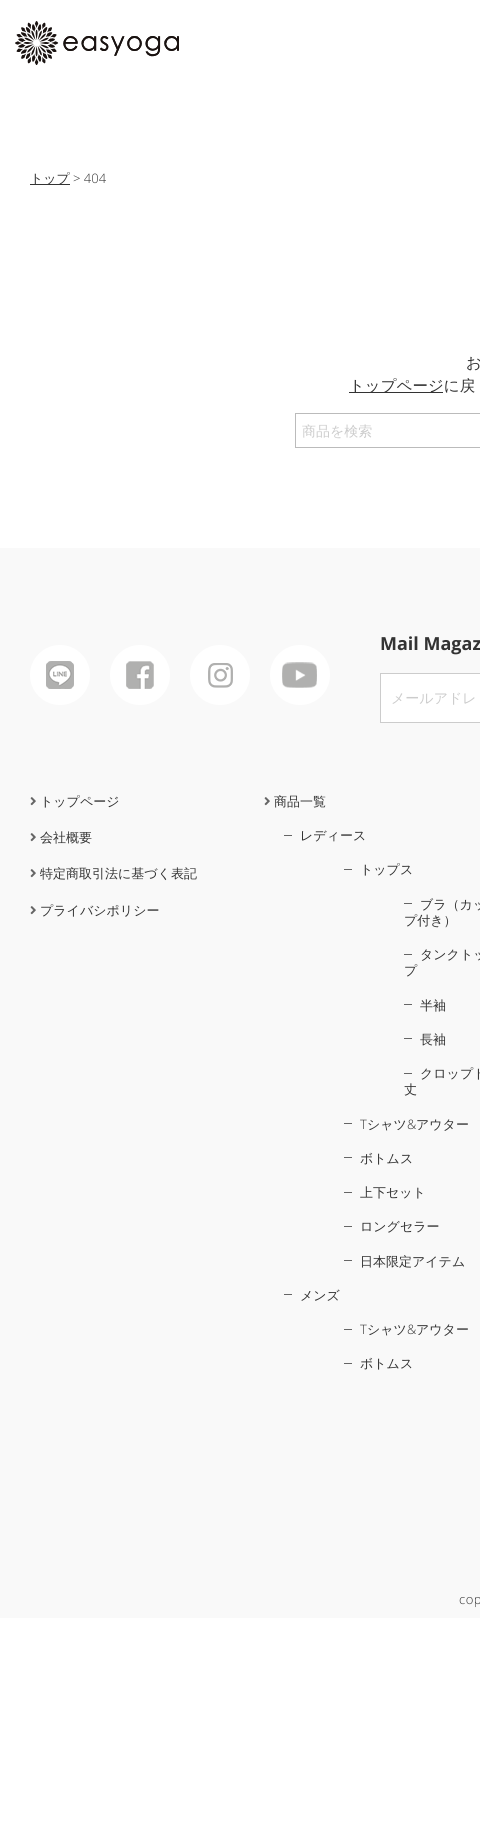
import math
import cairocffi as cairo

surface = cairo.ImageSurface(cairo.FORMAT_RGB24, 480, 1828)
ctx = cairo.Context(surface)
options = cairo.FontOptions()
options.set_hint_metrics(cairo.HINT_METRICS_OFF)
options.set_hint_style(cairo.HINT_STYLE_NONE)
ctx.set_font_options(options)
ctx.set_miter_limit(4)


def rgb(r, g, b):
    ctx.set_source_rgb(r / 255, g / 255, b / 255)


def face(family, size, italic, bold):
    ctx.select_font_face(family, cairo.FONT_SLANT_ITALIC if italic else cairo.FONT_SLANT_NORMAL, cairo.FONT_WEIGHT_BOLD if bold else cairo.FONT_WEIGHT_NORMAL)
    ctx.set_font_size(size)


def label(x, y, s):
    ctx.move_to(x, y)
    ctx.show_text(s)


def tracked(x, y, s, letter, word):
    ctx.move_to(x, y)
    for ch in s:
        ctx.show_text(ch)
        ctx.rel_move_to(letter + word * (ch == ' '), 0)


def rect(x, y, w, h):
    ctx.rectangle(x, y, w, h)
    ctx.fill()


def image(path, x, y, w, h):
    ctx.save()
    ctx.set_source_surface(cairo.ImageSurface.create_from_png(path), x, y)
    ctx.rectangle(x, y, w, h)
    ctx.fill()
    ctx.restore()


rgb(255, 255, 255)
ctx.paint()
image('image0.png', 15, 21, 164, 44)
rgb(51, 51, 51)
rect(30, 184, 40, 1)
face('WenQuanYi Zen Hei Medium', 13, 0, 0)
label(30, 183, 'トップ')
face('Open Sans Light', 13, 0, 0)
label(73, 183, '> 404')
face('WenQuanYi Zen Hei Medium', 15.5, 0, 0)
label(466, 368, 'お')
rect(349, 392, 94, 1)
label(349, 391, 'トップページに戻')
ctx.rectangle(295.5, 413.5, 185, 34)
rgb(187, 187, 187)
ctx.set_line_width(1)
ctx.stroke()
face('WenQuanYi Zen Hei Medium', 14, 0, 0)
rgb(204, 204, 204)
label(302, 436, '商品を検索')
rgb(249, 249, 249)
rect(0, 548, 480, 1070)
image('image1.png', 30, 645, 60, 60)
image('image2.png', 110, 645, 60, 60)
image('image3.png', 190, 645, 60, 60)
image('image4.png', 270, 645, 60, 60)
face('Open Sans', 18, 0, 1)
rgb(51, 51, 51)
label(380, 650, 'Mail Magaz')
rgb(255, 255, 255)
ctx.rectangle(380.5, 673.5, 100, 49)
ctx.fill_preserve()
rgb(204, 204, 204)
ctx.stroke()
face('WenQuanYi Zen Hei Medium', 14, 0, 0)
label(391, 703, 'メールアドレ')
image('image5.png', 30, 797, 6, 9)
face('WenQuanYi Zen Hei Medium', 13, 0, 0)
rgb(51, 51, 51)
label(40, 806, 'トップページ')
image('image5.png', 30, 833, 6, 9)
label(40, 842, '会社概要')
image('image5.png', 30, 869, 6, 9)
label(40, 878, '特定商取引法に基づく表記')
image('image5.png', 30, 906, 6, 9)
label(40, 915, 'プライバシポリシー')
image('image5.png', 264, 797, 6, 9)
label(274, 806, '商品一覧')
label(300, 840, 'レディース')
rgb(102, 102, 102)
rect(284, 835, 8, 1)
rgb(51, 51, 51)
label(360, 874, 'トップス')
rgb(102, 102, 102)
rect(344, 869, 8, 1)
rgb(51, 51, 51)
label(420, 909, 'ブラ（カッ')
rgb(102, 102, 102)
rect(404, 903, 8, 1)
rgb(51, 51, 51)
label(404, 925, 'プ付き）')
label(420, 959, 'タンクトッ')
rgb(102, 102, 102)
rect(404, 954, 8, 1)
rgb(51, 51, 51)
label(404, 975, 'プ')
label(420, 1010, '半袖')
rgb(102, 102, 102)
rect(404, 1004, 8, 1)
rgb(51, 51, 51)
label(420, 1044, '長袖')
rgb(102, 102, 102)
rect(404, 1038, 8, 1)
rgb(51, 51, 51)
label(420, 1078, 'クロップド')
rgb(102, 102, 102)
rect(404, 1073, 8, 1)
rgb(51, 51, 51)
label(404, 1094, '丈')
face('Open Sans Light', 13, 0, 0)
label(360, 1129, 'T')
rgb(102, 102, 102)
rect(344, 1123, 8, 1)
face('WenQuanYi Zen Hei Medium', 13, 0, 0)
rgb(51, 51, 51)
label(367, 1129, 'シャツ')
face('Open Sans Light', 13, 0, 0)
label(407, 1129, '&')
face('WenQuanYi Zen Hei Medium', 13, 0, 0)
label(416, 1129, 'アウター')
label(360, 1163, 'ボトムス')
rgb(102, 102, 102)
rect(344, 1157, 8, 1)
rgb(51, 51, 51)
label(360, 1197, '上下セット')
rgb(102, 102, 102)
rect(344, 1192, 8, 1)
rgb(51, 51, 51)
label(360, 1231, 'ロングセラー')
rgb(102, 102, 102)
rect(344, 1226, 8, 1)
rgb(51, 51, 51)
label(360, 1266, '日本限定アイテム')
rgb(102, 102, 102)
rect(344, 1260, 8, 1)
rgb(51, 51, 51)
label(300, 1300, 'メンズ')
rgb(102, 102, 102)
rect(284, 1294, 8, 1)
face('Open Sans Light', 13, 0, 0)
rgb(51, 51, 51)
label(360, 1334, 'T')
rgb(102, 102, 102)
rect(344, 1329, 8, 1)
face('WenQuanYi Zen Hei Medium', 13, 0, 0)
rgb(51, 51, 51)
label(367, 1334, 'シャツ')
face('Open Sans Light', 13, 0, 0)
label(407, 1334, '&')
face('WenQuanYi Zen Hei Medium', 13, 0, 0)
label(416, 1334, 'アウター')
label(360, 1368, 'ボトムス')
rgb(102, 102, 102)
rect(344, 1363, 8, 1)
face('Open Sans Light', 13, 0, 0)
rgb(51, 51, 51)
tracked(459, 1604, 'cop', 0.5, 0)
surface.write_to_png('render.png')
